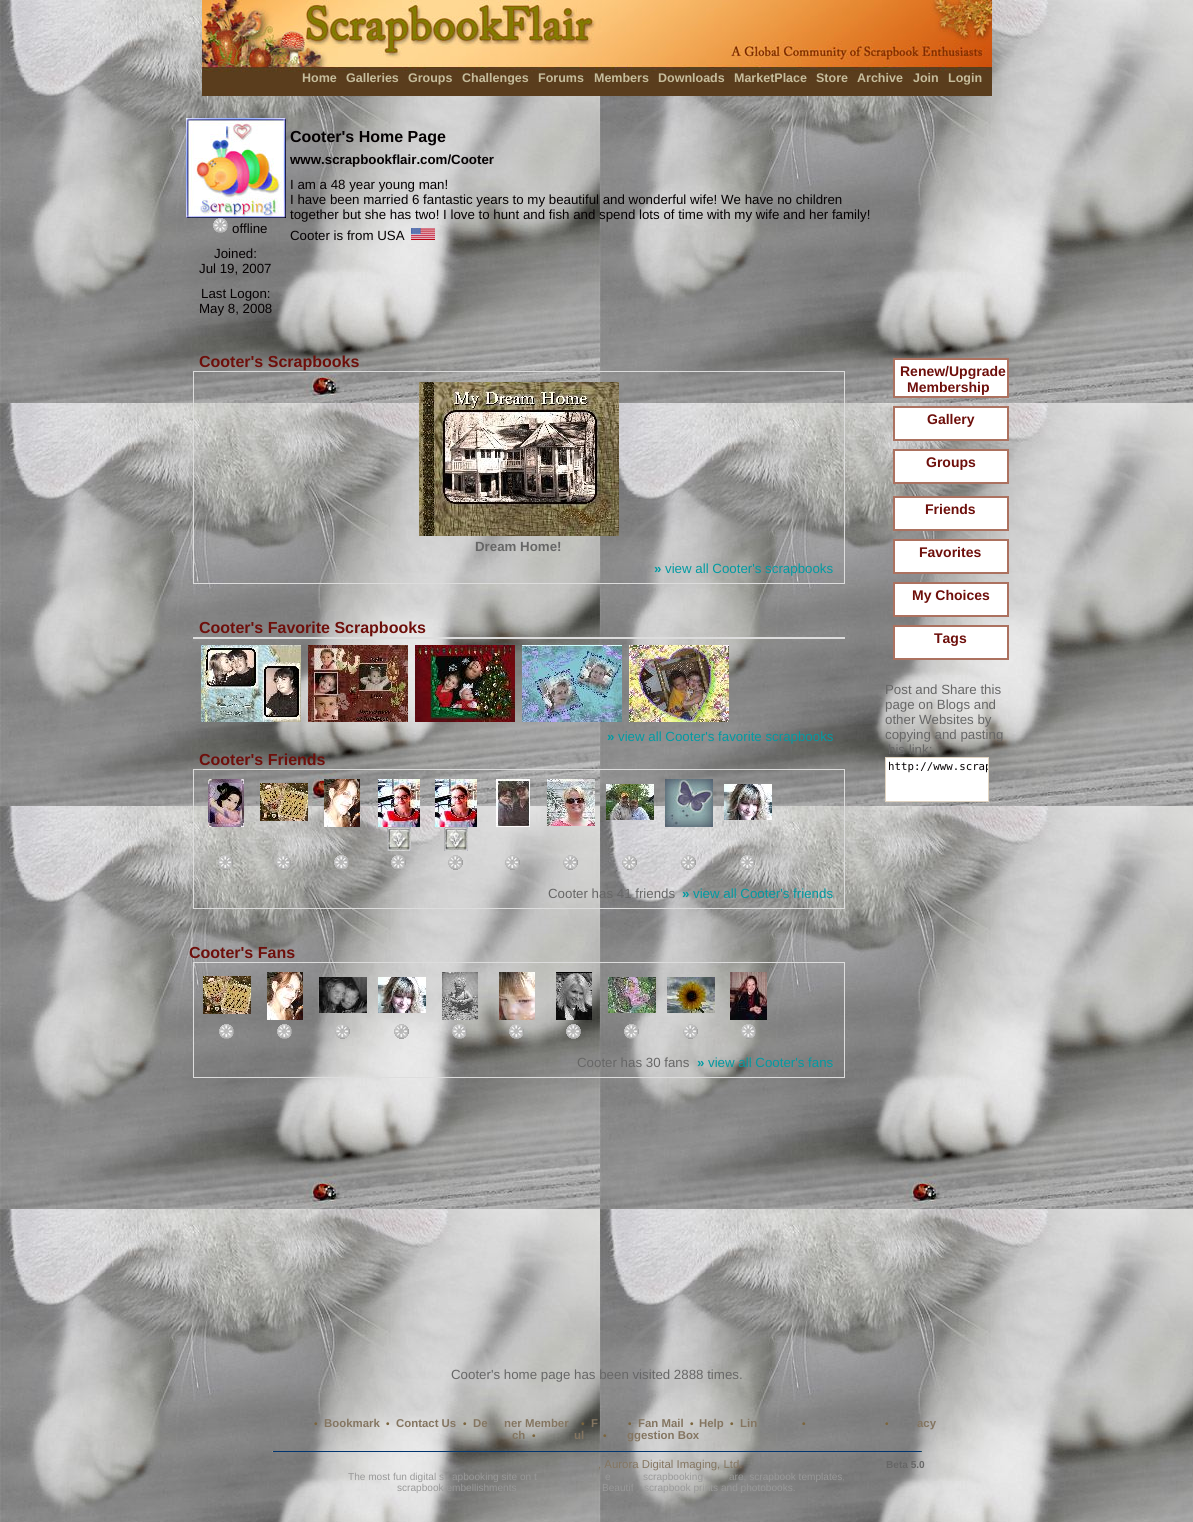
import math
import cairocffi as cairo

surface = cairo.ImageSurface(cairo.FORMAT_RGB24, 1193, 1522)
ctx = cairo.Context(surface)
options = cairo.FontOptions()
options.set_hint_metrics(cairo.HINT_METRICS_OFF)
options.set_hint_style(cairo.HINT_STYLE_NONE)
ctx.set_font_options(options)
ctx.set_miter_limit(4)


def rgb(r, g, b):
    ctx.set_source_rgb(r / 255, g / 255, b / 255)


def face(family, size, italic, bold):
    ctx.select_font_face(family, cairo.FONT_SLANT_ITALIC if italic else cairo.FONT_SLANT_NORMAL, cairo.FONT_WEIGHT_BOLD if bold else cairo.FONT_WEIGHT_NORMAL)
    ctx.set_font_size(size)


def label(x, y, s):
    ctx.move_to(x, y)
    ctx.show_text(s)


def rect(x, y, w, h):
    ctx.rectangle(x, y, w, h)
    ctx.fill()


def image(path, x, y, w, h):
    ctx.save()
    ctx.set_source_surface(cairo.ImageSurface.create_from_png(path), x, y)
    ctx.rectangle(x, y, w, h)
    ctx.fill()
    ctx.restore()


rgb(255, 255, 255)
ctx.paint()
image('image0.png', 0, 0, 1193, 1522)
image('image1.png', 202, 0, 790, 96)
face('Liberation Sans', 12.5, 0, 1)
rgb(198, 189, 156)
label(302, 82, 'Home')
label(346, 82, 'Galleries')
label(408, 82, 'Groups')
label(462, 82, 'Challenges')
label(538, 82, 'Forums')
label(594, 82, 'Members')
label(658, 82, 'Downloads')
label(734, 82, 'MarketPlace')
label(816, 82, 'Store')
label(857, 82, 'Archive')
label(913, 82, 'Join')
label(948, 82, 'Login')
face('Liberation Sans', 16, 0, 1)
rgb(4, 0, 1)
label(290, 142, 'Cooter\'s Home Page')
face('Liberation Sans', 13.3, 0, 1)
label(290, 164, 'www.scrapbookflair.com/Cooter')
face('Liberation Sans', 13.3, 0, 0)
label(290, 189, 'I am a 48 year young man!')
label(290, 204, 'I have been married 6 fantastic years to my beautiful and wonderful wife! We have no children')
label(290, 219, 'together but she has two! I love to hunt and fish and spend lots of time with my wife and her family!')
label(290, 240, 'Cooter is from USA')
image('image2.png', 411, 228, 24, 12)
image('image3.png', 186, 118, 100, 100)
image('image4.png', 213, 218, 15, 15)
label(232, 233, 'offline')
label(214, 258, 'Joined:')
label(199, 273, 'Jul 19, 2007')
label(201, 298, 'Last Logon:')
label(199, 313, 'May 8, 2008')
face('Liberation Sans', 16, 0, 1)
rgb(110, 15, 11)
label(199, 367, 'Cooter\'s Scrapbooks')
ctx.rectangle(193.5, 371.5, 651, 212)
rgb(221, 221, 221)
ctx.set_line_width(1)
ctx.stroke()
image('image5.png', 419, 382, 200, 154)
face('Liberation Sans', 13.3, 0, 1)
rgb(102, 102, 102)
label(475, 551, 'Dream Home!')
rgb(1, 154, 162)
label(654, 573, '»')
face('Liberation Sans', 13.3, 0, 0)
label(665, 573, 'view all Cooter\'s scrapbooks')
face('Liberation Sans', 16, 0, 1)
rgb(110, 15, 11)
label(199, 633, 'Cooter\'s Favorite Scrapbooks')
rgb(221, 221, 221)
rect(193, 637, 652, 2)
image('image6.png', 201, 645, 100, 77)
image('image7.png', 308, 645, 100, 77)
image('image8.png', 415, 645, 100, 77)
image('image9.png', 522, 645, 100, 77)
image('image10.png', 629, 645, 100, 77)
face('Liberation Sans', 13.3, 0, 1)
rgb(1, 154, 162)
label(607, 741, '»')
face('Liberation Sans', 13.3, 0, 0)
label(618, 741, 'view all Cooter\'s favorite scrapbooks')
face('Liberation Sans', 16, 0, 1)
rgb(110, 15, 11)
label(199, 765, 'Cooter\'s Friends')
ctx.rectangle(193.5, 769.5, 651, 139)
rgb(221, 221, 221)
ctx.stroke()
image('image11.png', 208, 779, 36, 48)
image('image12.png', 218, 855, 15, 15)
image('image13.png', 260, 783, 48, 38)
image('image14.png', 276, 855, 15, 15)
image('image15.png', 324, 779, 36, 48)
image('image16.png', 334, 855, 15, 15)
image('image17.png', 378, 779, 42, 48)
image('image18.png', 387, 827, 24, 24)
image('image19.png', 391, 855, 15, 15)
image('image17.png', 435, 779, 42, 48)
image('image18.png', 444, 827, 24, 24)
image('image20.png', 448, 855, 15, 15)
image('image21.png', 496, 779, 34, 48)
image('image22.png', 505, 855, 15, 15)
image('image23.png', 547, 779, 48, 47)
image('image24.png', 563, 855, 15, 15)
image('image25.png', 606, 784, 48, 36)
image('image26.png', 622, 855, 15, 15)
image('image27.png', 665, 779, 48, 48)
image('image28.png', 681, 855, 15, 15)
image('image29.png', 724, 784, 48, 36)
image('image30.png', 740, 855, 15, 15)
face('Liberation Sans', 13.3, 0, 0)
rgb(102, 102, 102)
label(548, 898, 'Cooter has 41 friends')
face('Liberation Sans', 13.3, 0, 1)
rgb(1, 154, 162)
label(682, 898, '»')
face('Liberation Sans', 13.3, 0, 0)
label(693, 898, 'view all Cooter\'s friends')
face('Liberation Sans', 16, 0, 1)
rgb(110, 15, 11)
label(189, 958, 'Cooter\'s Fans')
ctx.rectangle(193.5, 962.5, 651, 115)
rgb(221, 221, 221)
ctx.stroke()
image('image13.png', 203, 976, 48, 38)
image('image31.png', 219, 1024, 15, 15)
image('image15.png', 267, 972, 36, 48)
image('image32.png', 277, 1024, 15, 15)
image('image33.png', 319, 977, 48, 36)
image('image34.png', 335, 1024, 15, 15)
image('image29.png', 378, 977, 48, 36)
image('image35.png', 394, 1024, 15, 15)
image('image36.png', 442, 972, 36, 48)
image('image37.png', 452, 1024, 15, 15)
image('image38.png', 499, 972, 36, 48)
image('image39.png', 509, 1024, 15, 15)
image('image40.png', 556, 972, 36, 48)
image('image41.png', 566, 1024, 15, 15)
image('image42.png', 608, 977, 48, 36)
image('image43.png', 624, 1024, 15, 15)
image('image44.png', 667, 977, 48, 36)
image('image45.png', 683, 1024, 15, 15)
image('image46.png', 730, 972, 37, 48)
image('image47.png', 741, 1024, 15, 15)
face('Liberation Sans', 13.3, 0, 0)
rgb(102, 102, 102)
label(577, 1067, 'Cooter has 30 fans')
face('Liberation Sans', 13.3, 0, 1)
rgb(1, 154, 162)
label(697, 1067, '»')
face('Liberation Sans', 13.3, 0, 0)
label(708, 1067, 'view all Cooter\'s fans')
rgb(255, 255, 255)
ctx.rectangle(894, 359, 114, 38)
ctx.fill_preserve()
rgb(172, 113, 95)
ctx.set_line_width(2)
ctx.stroke()
face('Liberation Sans', 14, 0, 1)
rgb(110, 15, 11)
label(900, 376, 'Renew/Upgrade')
label(907, 392, 'Membership')
rgb(255, 255, 255)
ctx.rectangle(894, 407, 114, 33)
ctx.fill_preserve()
rgb(172, 113, 95)
ctx.stroke()
rgb(110, 15, 11)
label(927, 424, 'Gallery')
rgb(255, 255, 255)
ctx.rectangle(894, 450, 114, 33)
ctx.fill_preserve()
rgb(172, 113, 95)
ctx.stroke()
rgb(110, 15, 11)
label(926, 467, 'Groups')
rgb(255, 255, 255)
ctx.rectangle(894, 497, 114, 33)
ctx.fill_preserve()
rgb(172, 113, 95)
ctx.stroke()
rgb(110, 15, 11)
label(925, 514, 'Friends')
rgb(255, 255, 255)
ctx.rectangle(894, 540, 114, 33)
ctx.fill_preserve()
rgb(172, 113, 95)
ctx.stroke()
rgb(110, 15, 11)
label(919, 557, 'Favorites')
rgb(255, 255, 255)
ctx.rectangle(894, 583, 114, 33)
ctx.fill_preserve()
rgb(172, 113, 95)
ctx.stroke()
rgb(110, 15, 11)
label(912, 600, 'My Choices')
rgb(255, 255, 255)
ctx.rectangle(894, 626, 114, 33)
ctx.fill_preserve()
rgb(172, 113, 95)
ctx.stroke()
rgb(110, 15, 11)
label(934, 643, 'Tags')
face('Liberation Sans', 13.3, 0, 0)
rgb(102, 102, 102)
label(885, 694, 'Post and Share this')
label(885, 709, 'page on Blogs and')
label(885, 724, 'other Websites by')
label(885, 739, 'copying and pasting')
label(888, 754, 'his link:')
rgb(255, 255, 255)
ctx.rectangle(885.5, 757.5, 103, 44)
ctx.fill_preserve()
rgb(225, 212, 192)
ctx.set_line_width(1)
ctx.stroke()
ctx.save()
ctx.rectangle(886, 758, 102, 43)
ctx.clip()
face('DejaVu Sans Mono', 10.75, 0, 0)
rgb(4, 0, 1)
label(888, 770, 'http://www.scrap')
ctx.restore()
rgb(102, 102, 102)
label(451, 1379, 'Cooter\'s home page has been visited 2888 times.')
face('Liberation Sans', 10, 0, 1)
rgb(123, 101, 60)
label(314, 1427, '•')
face('Liberation Sans', 11.4, 0, 1)
rgb(132, 117, 96)
label(324, 1427, 'Bookmark')
face('Liberation Sans', 10, 0, 1)
rgb(123, 101, 60)
label(386, 1427, '•')
face('Liberation Sans', 11.4, 0, 1)
rgb(132, 117, 96)
label(396, 1427, 'Contact Us')
face('Liberation Sans', 10, 0, 1)
rgb(123, 101, 60)
label(463, 1427, '•')
face('Liberation Sans', 11.4, 0, 1)
rgb(132, 117, 96)
label(473, 1427, 'De')
label(504, 1427, 'ner Member')
face('Liberation Sans', 10, 0, 1)
rgb(123, 101, 60)
label(581, 1427, '•')
face('Liberation Sans', 11.4, 0, 1)
rgb(132, 117, 96)
label(591, 1427, 'F')
face('Liberation Sans', 10, 0, 1)
rgb(123, 101, 60)
label(628, 1427, '•')
face('Liberation Sans', 11.4, 0, 1)
rgb(132, 117, 96)
label(638, 1427, 'Fan Mail')
face('Liberation Sans', 10, 0, 1)
rgb(123, 101, 60)
label(690, 1427, '•')
face('Liberation Sans', 11.4, 0, 1)
rgb(132, 117, 96)
label(699, 1427, 'Help')
face('Liberation Sans', 10, 0, 1)
rgb(123, 101, 60)
label(730, 1427, '•')
face('Liberation Sans', 11.4, 0, 1)
rgb(132, 117, 96)
label(740, 1427, 'Lin')
face('Liberation Sans', 10, 0, 1)
rgb(123, 101, 60)
label(802, 1427, '•')
label(885, 1427, '•')
face('Liberation Sans', 11.4, 0, 1)
rgb(132, 117, 96)
label(917, 1427, 'acy')
label(512, 1439, 'ch')
face('Liberation Sans', 10, 0, 1)
rgb(123, 101, 60)
label(532, 1439, '•')
face('Liberation Sans', 11.4, 0, 1)
rgb(132, 117, 96)
label(574, 1439, 'ul')
face('Liberation Sans', 10, 0, 1)
rgb(123, 101, 60)
label(603, 1439, '•')
face('Liberation Sans', 11.4, 0, 1)
rgb(132, 117, 96)
label(627, 1439, 'ggestion Box')
image('image48.png', 272, 1451, 650, 1)
face('Liberation Sans', 11.4, 0, 0)
label(598, 1468, ', Aurora Digital Imaging, Ltd.')
face('Liberation Sans', 10.1, 0, 1)
rgb(102, 102, 102)
label(886, 1468, 'Beta 5.0')
face('Liberation Sans', 10.1, 0, 0)
rgb(153, 153, 153)
label(348, 1480, 'The most fun digital s')
label(452, 1480, 'apbooking site on t')
label(605, 1480, 'e')
label(643, 1480, 'scrapbooking')
label(729, 1480, 'are, scrapbook templates,')
label(397, 1491, 'scrapbook embellishments')
label(602, 1491, 'Beautif')
label(644, 1491, 'scrapbook prints and photobooks.')
surface.write_to_png('render.png')
